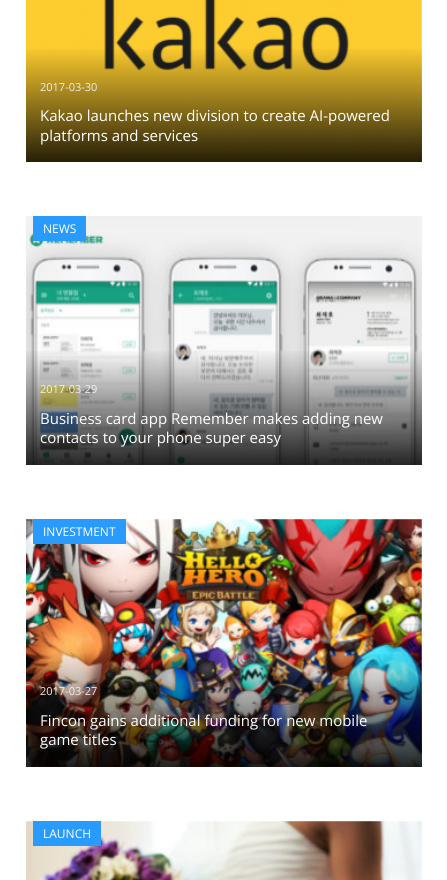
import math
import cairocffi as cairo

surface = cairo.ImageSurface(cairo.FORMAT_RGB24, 447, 880)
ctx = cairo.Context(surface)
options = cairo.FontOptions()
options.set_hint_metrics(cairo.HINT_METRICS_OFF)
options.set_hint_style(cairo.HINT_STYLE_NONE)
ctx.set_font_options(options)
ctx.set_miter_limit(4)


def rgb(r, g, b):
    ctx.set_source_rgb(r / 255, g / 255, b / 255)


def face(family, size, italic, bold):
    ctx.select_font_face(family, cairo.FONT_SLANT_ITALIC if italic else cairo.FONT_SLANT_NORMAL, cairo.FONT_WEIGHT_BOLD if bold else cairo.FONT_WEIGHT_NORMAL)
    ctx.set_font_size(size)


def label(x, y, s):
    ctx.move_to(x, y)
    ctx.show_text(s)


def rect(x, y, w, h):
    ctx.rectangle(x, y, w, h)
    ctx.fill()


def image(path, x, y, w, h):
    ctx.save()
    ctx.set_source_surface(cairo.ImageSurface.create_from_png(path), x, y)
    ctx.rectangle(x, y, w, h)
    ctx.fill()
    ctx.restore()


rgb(255, 255, 255)
ctx.paint()
image('image0.png', 26, 0, 396, 162)
gradient = cairo.LinearGradient(224, 46, 224, 162)
gradient.add_color_stop_rgba(0, 0, 0, 0, 0)
gradient.add_color_stop_rgba(1, 0, 0, 0, 0.85)
ctx.set_source(gradient)
rect(26, 49, 396, 113)
face('Open Sans', 11, 0, 0)
rgb(239, 239, 239)
label(40, 91, '2017-03-30')
face('Open Sans', 15, 0, 0)
rgb(255, 255, 255)
label(40, 121, 'Kakao launches new division to create AI-powered')
label(40, 141, 'platforms and services')
image('image1.png', 26, 216, 396, 249)
rgb(41, 155, 254)
rect(33, 216, 53, 25)
face('Open Sans', 12, 0, 0)
rgb(255, 255, 255)
label(43, 233, 'NEWS')
gradient = cairo.LinearGradient(224, 348, 224, 465)
gradient.add_color_stop_rgba(0, 0, 0, 0, 0)
gradient.add_color_stop_rgba(1, 0, 0, 0, 0.85)
ctx.set_source(gradient)
rect(26, 351, 396, 114)
face('Open Sans', 11, 0, 0)
rgb(239, 239, 239)
label(40, 393, '2017-03-29')
face('Open Sans', 15, 0, 0)
rgb(255, 255, 255)
label(40, 424, 'Business card app Remember makes adding new')
label(40, 443, 'contacts to your phone super easy')
image('image2.png', 26, 519, 396, 248)
rgb(41, 155, 254)
rect(33, 519, 93, 25)
face('Open Sans', 12, 0, 0)
rgb(255, 255, 255)
label(43, 536, 'INVESTMENT')
gradient = cairo.LinearGradient(224, 651, 224, 767)
gradient.add_color_stop_rgba(0, 0, 0, 0, 0)
gradient.add_color_stop_rgba(1, 0, 0, 0, 0.85)
ctx.set_source(gradient)
rect(26, 654, 396, 113)
face('Open Sans', 11, 0, 0)
rgb(239, 239, 239)
label(40, 695, '2017-03-27')
face('Open Sans', 15, 0, 0)
rgb(255, 255, 255)
label(40, 726, 'Fincon gains additional funding for new mobile')
label(40, 745, 'game titles')
image('image3.png', 26, 821, 396, 59)
rgb(41, 155, 254)
rect(33, 821, 68, 25)
face('Open Sans', 12, 0, 0)
rgb(255, 255, 255)
label(43, 838, 'LAUNCH')
surface.write_to_png('render.png')
